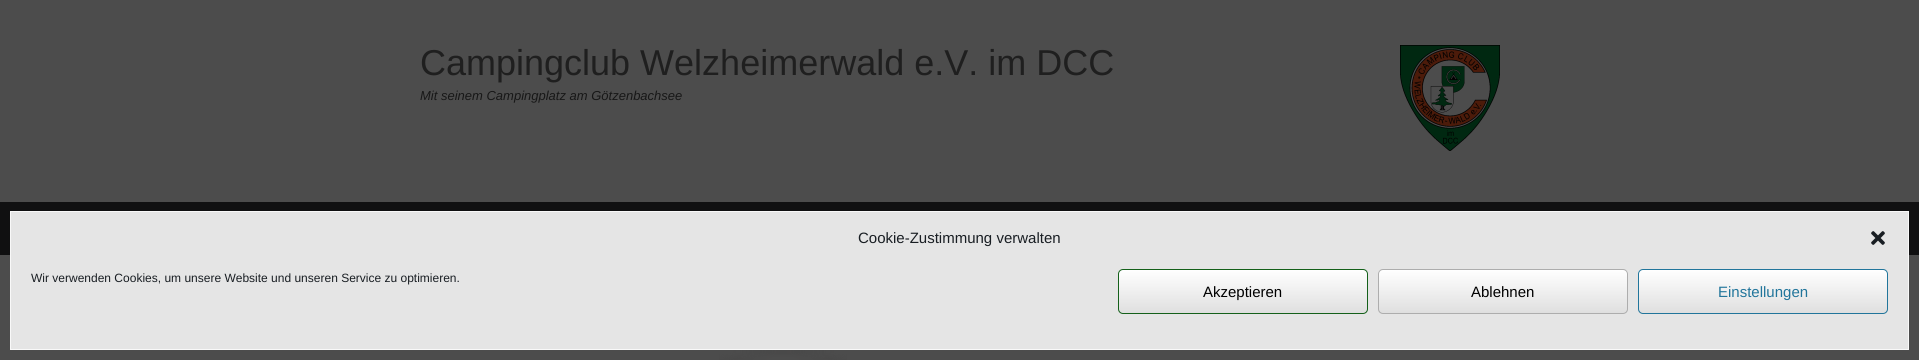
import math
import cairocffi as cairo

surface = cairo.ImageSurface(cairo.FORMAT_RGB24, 1919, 360)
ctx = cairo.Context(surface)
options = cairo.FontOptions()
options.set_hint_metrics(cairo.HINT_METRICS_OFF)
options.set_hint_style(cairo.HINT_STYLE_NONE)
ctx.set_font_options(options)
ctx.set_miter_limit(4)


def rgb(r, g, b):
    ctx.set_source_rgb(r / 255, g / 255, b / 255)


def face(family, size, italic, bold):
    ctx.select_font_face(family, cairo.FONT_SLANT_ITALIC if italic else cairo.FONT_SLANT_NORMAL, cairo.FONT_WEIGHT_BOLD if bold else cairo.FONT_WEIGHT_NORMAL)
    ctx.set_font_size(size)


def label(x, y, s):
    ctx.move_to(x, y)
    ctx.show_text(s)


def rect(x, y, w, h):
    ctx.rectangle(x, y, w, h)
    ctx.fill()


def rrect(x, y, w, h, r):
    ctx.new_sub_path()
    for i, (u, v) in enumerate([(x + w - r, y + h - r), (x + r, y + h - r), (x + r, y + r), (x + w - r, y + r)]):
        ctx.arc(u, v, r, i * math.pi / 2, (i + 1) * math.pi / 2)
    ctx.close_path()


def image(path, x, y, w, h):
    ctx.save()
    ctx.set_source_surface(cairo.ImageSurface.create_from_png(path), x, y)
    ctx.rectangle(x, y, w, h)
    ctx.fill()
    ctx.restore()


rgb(76, 76, 76)
ctx.paint()
face('Liberation Sans', 36, 0, 0)
rgb(31, 31, 31)
label(420, 75, 'Campingclub Welzheimerwald e.V. im DCC')
face('Liberation Sans', 13, 1, 0)
rgb(23, 23, 23)
label(420, 100, 'Mit seinem Campingplatz am Götzenbachsee')
image('image0.png', 1400, 45, 100, 106)
rgb(16, 16, 17)
rect(0, 202, 1919, 53)
image('image1.png', 719, 350, 128, 10)
rgb(229, 229, 229)
ctx.rectangle(10.5, 211.5, 1898, 138)
ctx.fill_preserve()
rgb(249, 249, 249)
ctx.set_line_width(1)
ctx.stroke()
face('Liberation Sans', 15, 0, 0)
rgb(25, 30, 35)
label(858, 243, 'Cookie-Zustimmung verwalten')
image('image2.png', 1871, 231, 14, 14)
face('Liberation Sans', 12, 0, 0)
label(31, 282, 'Wir verwenden Cookies, um unsere Website und unseren Service zu optimieren.')
ctx.save()
rrect(1118, 269, 250, 45, 5)
ctx.clip()
gradient = cairo.LinearGradient(1119, 313, 1119, 270)
gradient.add_color_stop_rgba(0, 0.875, 0.875, 0.875, 1)
gradient.add_color_stop_rgba(1, 1, 1, 1, 1)
ctx.set_source(gradient)
rect(1118, 270, 250, 43)
ctx.restore()
rrect(1118.5, 269.5, 249, 44, 4.5)
rgb(20, 96, 26)
ctx.stroke()
face('Liberation Sans', 15, 0, 0)
rgb(0, 0, 0)
label(1203, 297, 'Akzeptieren')
ctx.save()
rrect(1378, 269, 250, 45, 5)
ctx.clip()
gradient = cairo.LinearGradient(1379, 313, 1379, 270)
gradient.add_color_stop_rgba(0, 0.875, 0.875, 0.875, 1)
gradient.add_color_stop_rgba(1, 1, 1, 1, 1)
ctx.set_source(gradient)
rect(1378, 270, 250, 43)
ctx.restore()
rrect(1378.5, 269.5, 249, 44, 4.5)
rgb(173, 173, 173)
ctx.stroke()
rgb(0, 0, 0)
label(1471, 297, 'Ablehnen')
ctx.save()
rrect(1638, 269, 250, 45, 5)
ctx.clip()
gradient = cairo.LinearGradient(1639, 313, 1639, 270)
gradient.add_color_stop_rgba(0, 0.875, 0.875, 0.875, 1)
gradient.add_color_stop_rgba(1, 1, 1, 1, 1)
ctx.set_source(gradient)
rect(1638, 270, 250, 43)
ctx.restore()
rrect(1638.5, 269.5, 249, 44, 4.5)
rgb(33, 117, 155)
ctx.stroke()
label(1718, 297, 'Einstellungen')
surface.write_to_png('render.png')
